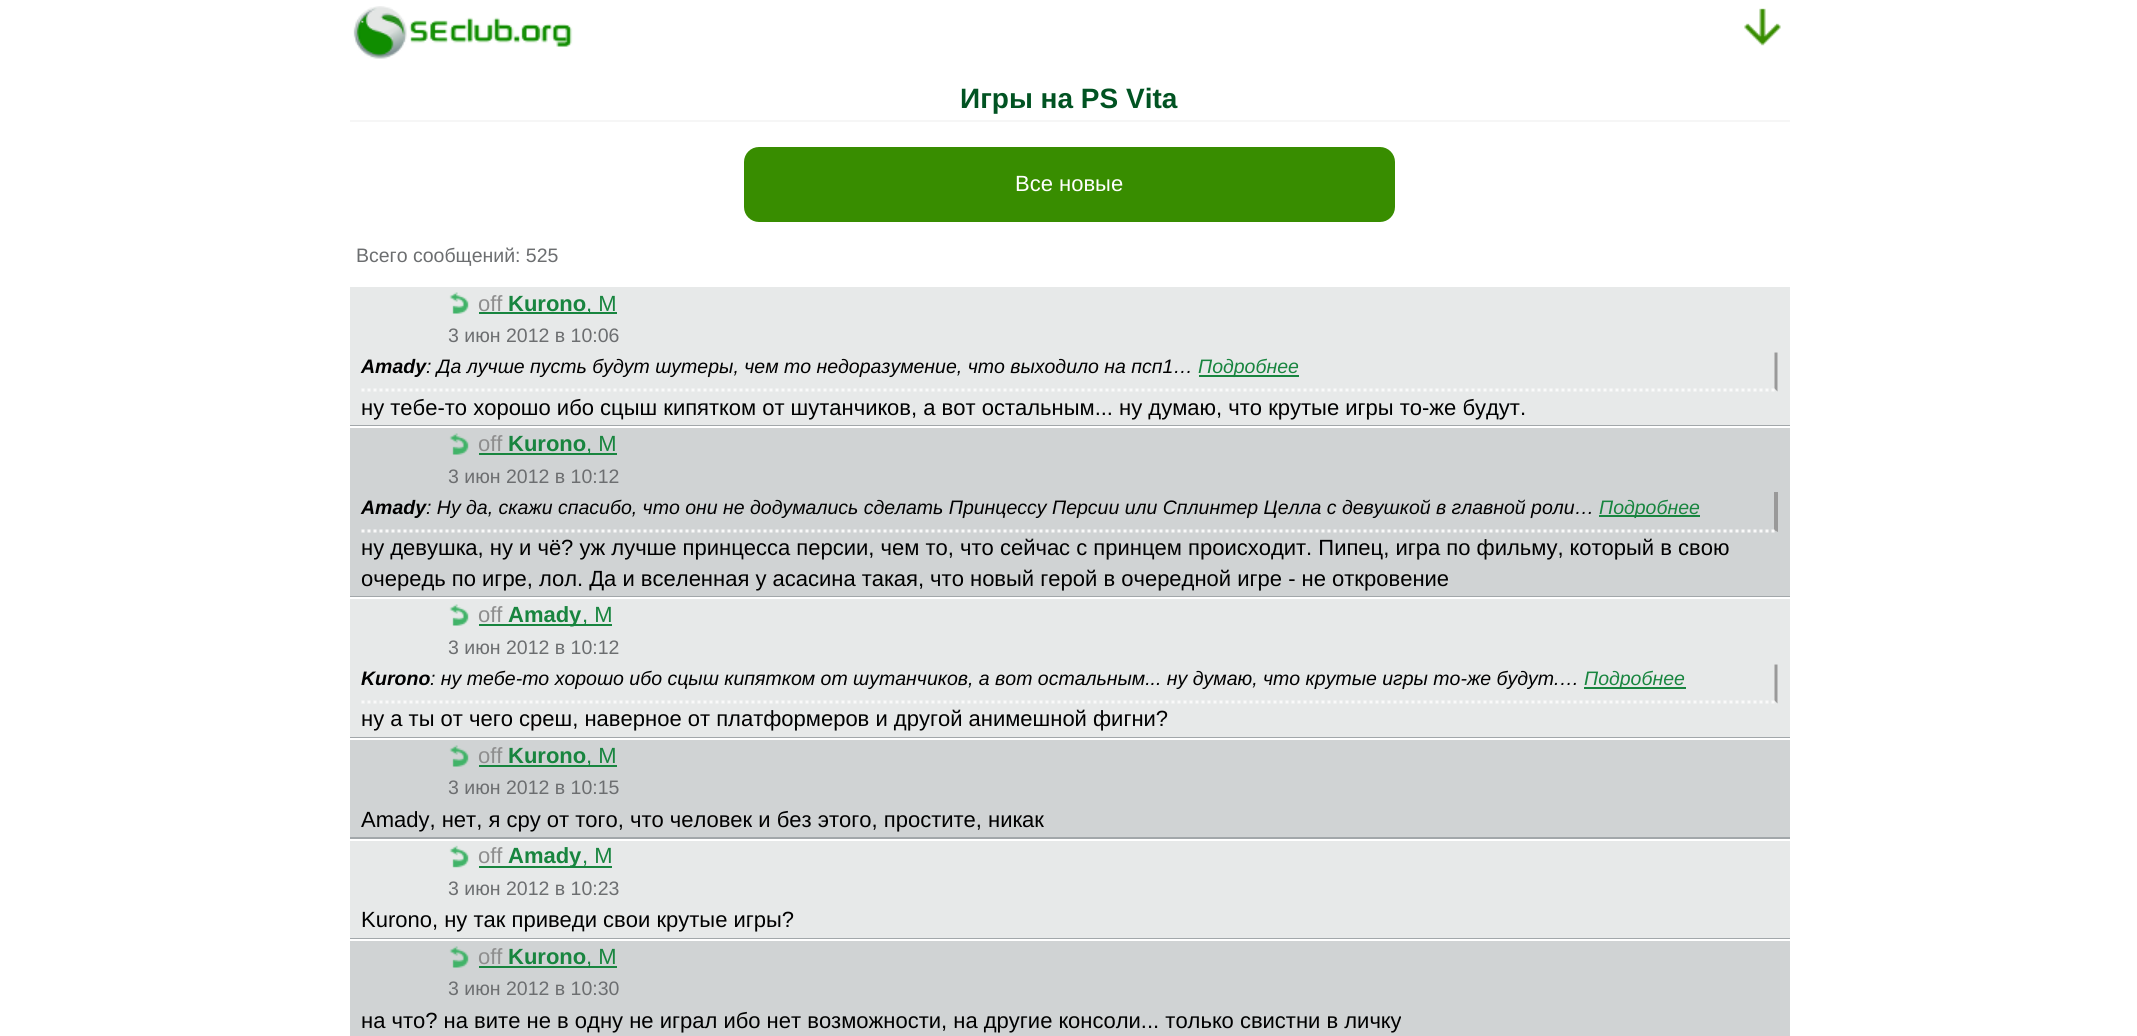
import math
import cairocffi as cairo

surface = cairo.ImageSurface(cairo.FORMAT_RGB24, 2137, 1036)
ctx = cairo.Context(surface)
options = cairo.FontOptions()
options.set_hint_metrics(cairo.HINT_METRICS_OFF)
options.set_hint_style(cairo.HINT_STYLE_NONE)
ctx.set_font_options(options)
ctx.set_miter_limit(4)


def rgb(r, g, b):
    ctx.set_source_rgb(r / 255, g / 255, b / 255)


def face(family, size, italic, bold):
    ctx.select_font_face(family, cairo.FONT_SLANT_ITALIC if italic else cairo.FONT_SLANT_NORMAL, cairo.FONT_WEIGHT_BOLD if bold else cairo.FONT_WEIGHT_NORMAL)
    ctx.set_font_size(size)


def label(x, y, s):
    ctx.move_to(x, y)
    ctx.show_text(s)


def rect(x, y, w, h):
    ctx.rectangle(x, y, w, h)
    ctx.fill()


def rrect(x, y, w, h, r):
    ctx.new_sub_path()
    for i, (u, v) in enumerate([(x + w - r, y + h - r), (x + r, y + h - r), (x + r, y + r), (x + w - r, y + r)]):
        ctx.arc(u, v, r, i * math.pi / 2, (i + 1) * math.pi / 2)
    ctx.close_path()


def image(path, x, y, w, h):
    ctx.save()
    ctx.set_source_surface(cairo.ImageSurface.create_from_png(path), x, y)
    ctx.rectangle(x, y, w, h)
    ctx.fill()
    ctx.restore()


rgb(255, 255, 255)
ctx.paint()
image('image0.png', 353, 6, 220, 53)
image('image1.png', 1744, 8, 37, 38)
rgb(246, 246, 246)
rect(350, 120, 1440, 2)
face('Liberation Sans', 28, 0, 1)
rgb(1, 83, 34)
label(960, 108, 'Игры на PS Vita')
rgb(56, 141, 0)
rrect(745, 148, 649, 73, 14)
ctx.fill_preserve()
ctx.stroke()
face('Liberation Sans', 22, 0, 0)
rgb(255, 255, 255)
label(1015, 191, 'Все новые')
face('Liberation Sans', 19.5, 0, 0)
rgb(108, 110, 112)
label(356, 262, 'Всего сообщений: 525')
rgb(231, 233, 233)
rect(350, 287, 1440, 138)
rgb(162, 167, 170)
rect(350, 425, 1440, 1)
image('image2.png', 449, 292, 20, 22)
face('Liberation Sans', 22, 0, 0)
rgb(142, 142, 142)
label(478, 311, 'off')
face('Liberation Sans', 22, 0, 1)
rgb(24, 133, 63)
label(508, 311, 'Kurono')
rect(479, 312, 138, 2)
face('Liberation Sans', 22, 0, 0)
label(586, 311, ', М')
face('Liberation Sans', 19.5, 0, 0)
rgb(108, 110, 112)
label(448, 342, '3 июн 2012 в 10:06')
rgb(153, 153, 153)
ctx.new_path()
ctx.move_to(1777.5, 352.5)
ctx.line_to(1777.5, 391.5)
ctx.line_to(1774.5, 388.5)
ctx.line_to(1774.5, 352.5)
ctx.close_path()
ctx.fill()
ctx.new_path()
ctx.move_to(361.5, 390)
ctx.line_to(1777.5, 390)
rgb(250, 250, 250)
ctx.set_line_width(3)
ctx.set_dash([3, 3])
ctx.stroke()
face('Liberation Sans', 19.5, 1, 1)
rgb(0, 0, 0)
label(361, 373, 'Amady')
face('Liberation Sans', 19.5, 1, 0)
label(426, 373, ': Да лучше пусть будут шутеры, чем то недоразумение, что выходило на псп1…')
rgb(24, 133, 63)
rect(1199, 375, 100, 2)
label(1198, 373, 'Подробнее')
face('Liberation Sans', 22, 0, 0)
rgb(0, 0, 0)
label(361, 415, 'ну тебе-то хорошо ибо сцыш кипятком от шутанчиков, а вот остальным... ну думаю, что крутые игры то-же будут.')
rgb(208, 211, 212)
rect(350, 428, 1440, 168)
rgb(162, 167, 170)
rect(350, 596, 1440, 1)
image('image3.png', 449, 433, 20, 22)
rgb(142, 142, 142)
label(478, 451, 'off')
face('Liberation Sans', 22, 0, 1)
rgb(24, 133, 63)
label(508, 451, 'Kurono')
rect(479, 453, 138, 2)
face('Liberation Sans', 22, 0, 0)
label(586, 451, ', М')
face('Liberation Sans', 19.5, 0, 0)
rgb(108, 110, 112)
label(448, 483, '3 июн 2012 в 10:12')
rgb(153, 153, 153)
ctx.new_path()
ctx.move_to(1778, 492)
ctx.line_to(1778, 532)
ctx.line_to(1774, 530)
ctx.line_to(1774, 492)
ctx.close_path()
ctx.fill()
ctx.new_path()
ctx.move_to(361.5, 531)
ctx.line_to(1777.5, 531)
rgb(250, 250, 250)
ctx.stroke()
face('Liberation Sans', 19.5, 1, 1)
rgb(0, 0, 0)
label(361, 514, 'Amady')
face('Liberation Sans', 19.5, 1, 0)
label(426, 514, ': Ну да, скажи спасибо, что они не додумались сделать Принцессу Персии или Сплинтер Целла с девушкой в главной роли…')
rgb(24, 133, 63)
rect(1599, 515, 101, 2)
label(1599, 514, 'Подробнее')
face('Liberation Sans', 22, 0, 0)
rgb(0, 0, 0)
label(361, 555, 'ну девушка, ну и чё? уж лучше принцесса персии, чем то, что сейчас с принцем происходит. Пипец, игра по фильму, который в свою')
label(361, 586, 'очередь по игре, лол. Да и вселенная у асасина такая, что новый герой в очередной игре - не откровение')
rgb(231, 233, 233)
rect(350, 599, 1440, 138)
rgb(162, 167, 170)
rect(350, 737, 1440, 1)
image('image2.png', 449, 604, 20, 22)
rgb(142, 142, 142)
label(478, 622, 'off')
rgb(24, 133, 63)
rect(479, 624, 133, 2)
face('Liberation Sans', 22, 0, 1)
label(508, 622, 'Amady')
face('Liberation Sans', 22, 0, 0)
label(582, 622, ', М')
face('Liberation Sans', 19.5, 0, 0)
rgb(108, 110, 112)
label(448, 654, '3 июн 2012 в 10:12')
rgb(153, 153, 153)
ctx.new_path()
ctx.move_to(1777.5, 664.5)
ctx.line_to(1777.5, 703.5)
ctx.line_to(1774.5, 700.5)
ctx.line_to(1774.5, 664.5)
ctx.close_path()
ctx.fill()
ctx.new_path()
ctx.move_to(361.5, 702)
ctx.line_to(1777.5, 702)
rgb(250, 250, 250)
ctx.stroke()
face('Liberation Sans', 19.5, 1, 1)
rgb(0, 0, 0)
label(361, 685, 'Kurono')
face('Liberation Sans', 19.5, 1, 0)
label(430, 685, ': ну тебе-то хорошо ибо сцыш кипятком от шутанчиков, а вот остальным... ну думаю, что крутые игры то-же будут.…')
rgb(24, 133, 63)
rect(1584, 687, 102, 2)
label(1584, 685, 'Подробнее')
face('Liberation Sans', 22, 0, 0)
rgb(0, 0, 0)
label(361, 726, 'ну а ты от чего среш, наверное от платформеров и другой анимешной фигни?')
rgb(208, 211, 212)
rect(350, 740, 1440, 97)
rgb(162, 167, 170)
rect(350, 837, 1440, 2)
image('image3.png', 449, 745, 20, 22)
rgb(142, 142, 142)
label(478, 763, 'off')
face('Liberation Sans', 22, 0, 1)
rgb(24, 133, 63)
label(508, 763, 'Kurono')
rect(479, 765, 138, 2)
face('Liberation Sans', 22, 0, 0)
label(586, 763, ', М')
face('Liberation Sans', 19.5, 0, 0)
rgb(108, 110, 112)
label(448, 794, '3 июн 2012 в 10:15')
face('Liberation Sans', 22, 0, 0)
rgb(0, 0, 0)
label(361, 827, 'Amady, нет, я сру от того, что человек и без этого, простите, никак')
rgb(231, 233, 233)
rect(350, 841, 1440, 97)
rgb(162, 167, 170)
rect(350, 938, 1440, 1)
image('image4.png', 449, 845, 20, 23)
rgb(142, 142, 142)
label(478, 863, 'off')
rgb(24, 133, 63)
rect(479, 866, 133, 2)
face('Liberation Sans', 22, 0, 1)
label(508, 863, 'Amady')
face('Liberation Sans', 22, 0, 0)
label(582, 863, ', М')
face('Liberation Sans', 19.5, 0, 0)
rgb(108, 110, 112)
label(448, 895, '3 июн 2012 в 10:23')
face('Liberation Sans', 22, 0, 0)
rgb(0, 0, 0)
label(361, 927, 'Kurono, ну так приведи свои крутые игры?')
rgb(208, 211, 212)
rect(350, 941, 1440, 95)
image('image3.png', 449, 946, 20, 22)
rgb(142, 142, 142)
label(478, 964, 'off')
face('Liberation Sans', 22, 0, 1)
rgb(24, 133, 63)
label(508, 964, 'Kurono')
rect(479, 966, 138, 2)
face('Liberation Sans', 22, 0, 0)
label(586, 964, ', М')
face('Liberation Sans', 19.5, 0, 0)
rgb(108, 110, 112)
label(448, 995, '3 июн 2012 в 10:30')
face('Liberation Sans', 22, 0, 0)
rgb(0, 0, 0)
label(361, 1028, 'на что? на вите не в одну не играл ибо нет возможности, на другие консоли... только свистни в личку')
surface.write_to_png('render.png')
